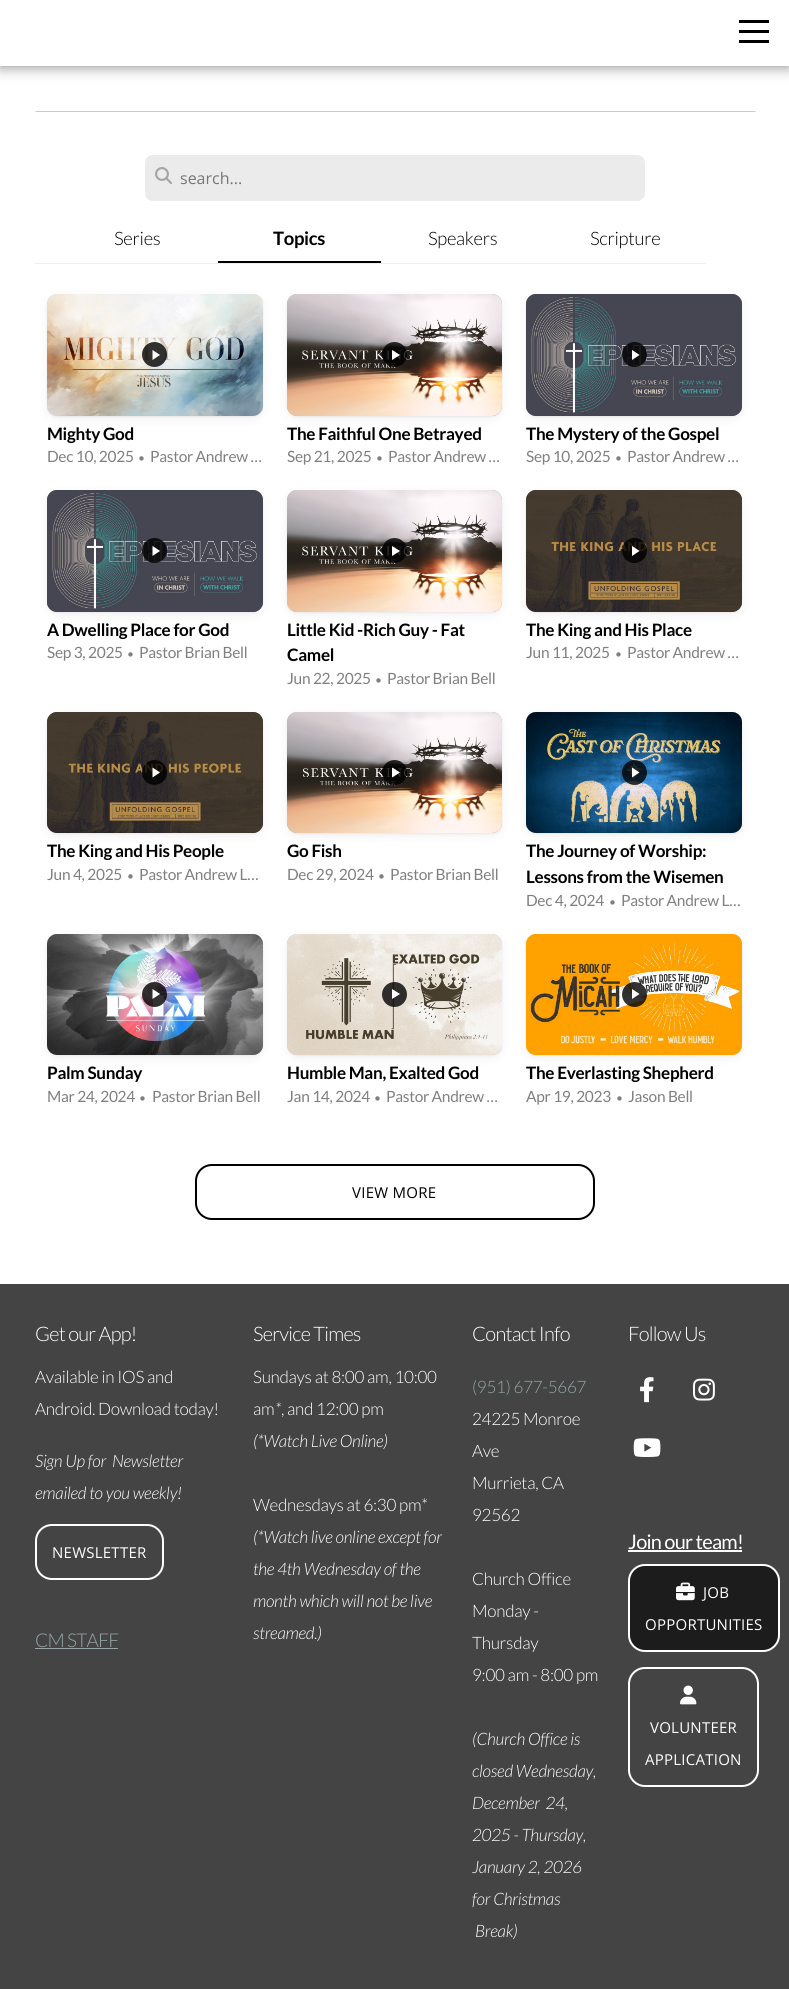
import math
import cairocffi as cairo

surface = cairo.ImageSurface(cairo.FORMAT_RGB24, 789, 1989)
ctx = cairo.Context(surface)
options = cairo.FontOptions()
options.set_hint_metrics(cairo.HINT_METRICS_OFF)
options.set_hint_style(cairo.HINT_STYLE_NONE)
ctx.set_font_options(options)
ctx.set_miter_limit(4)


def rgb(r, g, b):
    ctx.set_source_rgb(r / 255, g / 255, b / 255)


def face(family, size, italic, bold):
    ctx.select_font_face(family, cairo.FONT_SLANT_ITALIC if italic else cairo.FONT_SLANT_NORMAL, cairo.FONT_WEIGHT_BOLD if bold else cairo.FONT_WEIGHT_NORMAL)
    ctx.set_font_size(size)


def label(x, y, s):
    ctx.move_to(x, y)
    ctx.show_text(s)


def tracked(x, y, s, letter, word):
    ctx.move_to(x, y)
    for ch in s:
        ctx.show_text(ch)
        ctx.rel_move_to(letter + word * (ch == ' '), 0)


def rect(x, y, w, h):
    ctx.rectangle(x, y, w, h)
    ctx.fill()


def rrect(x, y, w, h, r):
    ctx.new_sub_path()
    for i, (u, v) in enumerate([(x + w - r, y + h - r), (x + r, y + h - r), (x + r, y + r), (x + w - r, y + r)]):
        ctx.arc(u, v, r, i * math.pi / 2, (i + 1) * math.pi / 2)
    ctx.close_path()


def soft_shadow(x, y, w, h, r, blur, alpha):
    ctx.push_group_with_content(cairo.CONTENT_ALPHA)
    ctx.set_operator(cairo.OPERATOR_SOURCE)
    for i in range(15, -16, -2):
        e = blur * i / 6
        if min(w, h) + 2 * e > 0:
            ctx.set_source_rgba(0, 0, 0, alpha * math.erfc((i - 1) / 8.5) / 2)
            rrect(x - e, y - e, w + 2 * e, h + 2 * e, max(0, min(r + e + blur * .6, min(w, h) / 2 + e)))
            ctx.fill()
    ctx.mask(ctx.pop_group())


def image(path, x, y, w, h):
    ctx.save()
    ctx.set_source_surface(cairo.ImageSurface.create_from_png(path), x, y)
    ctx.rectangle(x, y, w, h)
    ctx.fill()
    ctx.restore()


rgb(255, 255, 255)
ctx.paint()
rgb(0, 0, 0)
soft_shadow(0, 0, 789, 66, 0, 7.5, 0.5)
rgb(255, 255, 255)
rect(0, 0, 789, 66)
rgb(0, 0, 0)
rect(739, 20, 30, 3)
rect(739, 30, 30, 3)
rect(739, 40, 30, 3)
rgb(204, 204, 204)
ctx.new_path()
ctx.move_to(756, 112)
ctx.line_to(35, 112)
ctx.line_to(36, 111)
ctx.line_to(755, 111)
ctx.close_path()
ctx.fill()
rgb(235, 235, 235)
rrect(145, 155, 500, 46, 8)
ctx.fill()
image('image0.png', 155, 167, 17, 17)
face('Open Sans', 16, 0, 0)
rgb(118, 118, 118)
label(180, 184, 'search...')
rgb(237, 238, 240)
rect(35, 263, 671, 1)
face('Lato Light', 18.5, 0, 0)
rgb(0, 0, 0)
tracked(114, 245, 'Series', -0.3, 0)
rect(218, 261, 163, 2)
face('Lato', 18.5, 0, 1)
tracked(273, 245, 'Topics', -0.3, 0)
face('Lato Light', 18.5, 0, 0)
tracked(428, 245, 'Speakers', -0.3, 0)
tracked(590, 245, 'Scripture', -0.3, 0)
rgb(0, 0, 0)
soft_shadow(47, 295, 216, 122, 10, 1, 0.04)
soft_shadow(47, 297, 216, 122, 10, 5, 0.06)
rgb(215, 217, 211)
rrect(47, 294, 216, 122, 10)
ctx.fill()
image('image1.png', 47, 294, 216, 122)
ctx.set_source_rgba(0, 0, 0, 0.8)
ctx.arc(154.5, 354.5, 12.5, 0, 2 * math.pi)
ctx.fill()
rgb(255, 255, 255)
ctx.new_path()
ctx.move_to(152.5, 360)
ctx.line_to(152.5, 350)
ctx.line_to(160, 355)
ctx.close_path()
ctx.fill()
face('Lato', 17.1, 0, 1)
rgb(0, 0, 0)
tracked(47, 440, 'Mighty God', -0.3, 0)
face('Lato', 15.5, 0, 0)
rgb(128, 128, 128)
tracked(47, 462, 'Dec 10, 2025', -0.3, 0)
face('Lato', 12, 0, 0)
tracked(138, 462, '•', -0.3, 0)
face('Lato', 15.5, 0, 0)
tracked(150, 462, 'Pastor Andrew …', -0.3, 0)
rgb(0, 0, 0)
soft_shadow(287, 295, 215, 122, 10, 1, 0.04)
soft_shadow(287, 297, 215, 122, 10, 5, 0.06)
rgb(195, 177, 165)
rrect(287, 294, 215, 122, 10)
ctx.fill()
image('image2.png', 287, 294, 215, 122)
ctx.set_source_rgba(0, 0, 0, 0.8)
ctx.arc(394.5, 354.5, 12.5, 0, 2 * math.pi)
ctx.fill()
rgb(255, 255, 255)
ctx.new_path()
ctx.move_to(392, 360)
ctx.line_to(392, 350)
ctx.line_to(400, 355)
ctx.close_path()
ctx.fill()
face('Lato', 17.1, 0, 1)
rgb(0, 0, 0)
tracked(287, 440, 'The Faithful One Betrayed', -0.3, 0)
face('Lato', 15.5, 0, 0)
rgb(128, 128, 128)
tracked(287, 462, 'Sep 21, 2025', -0.3, 0)
face('Lato', 12, 0, 0)
tracked(376, 462, '•', -0.3, 0)
face('Lato', 15.5, 0, 0)
tracked(388, 462, 'Pastor Andrew …', -0.3, 0)
rgb(0, 0, 0)
soft_shadow(526, 295, 216, 122, 10, 1, 0.04)
soft_shadow(526, 297, 216, 122, 10, 5, 0.06)
rgb(76, 81, 92)
rrect(526, 294, 216, 122, 10)
ctx.fill()
image('image3.png', 526, 294, 216, 122)
ctx.set_source_rgba(0, 0, 0, 0.8)
ctx.arc(634.5, 354.5, 12.5, 0, 2 * math.pi)
ctx.fill()
rgb(255, 255, 255)
ctx.new_path()
ctx.move_to(632, 360)
ctx.line_to(632, 350)
ctx.line_to(639.5, 355)
ctx.close_path()
ctx.fill()
face('Lato', 17.1, 0, 1)
rgb(0, 0, 0)
tracked(526, 440, 'The Mystery of the Gospel', -0.3, 0)
face('Lato', 15.5, 0, 0)
rgb(128, 128, 128)
tracked(526, 462, 'Sep 10, 2025', -0.3, 0)
face('Lato', 12, 0, 0)
tracked(615, 462, '•', -0.3, 0)
face('Lato', 15.5, 0, 0)
tracked(627, 462, 'Pastor Andrew …', -0.3, 0)
rgb(0, 0, 0)
soft_shadow(47, 491, 216, 122, 10, 1, 0.04)
soft_shadow(47, 493, 216, 122, 10, 5, 0.06)
rgb(76, 81, 92)
rrect(47, 490, 216, 122, 10)
ctx.fill()
image('image4.png', 47, 490, 216, 122)
ctx.set_source_rgba(0, 0, 0, 0.8)
ctx.arc(154.5, 550.5, 12.5, 0, 2 * math.pi)
ctx.fill()
rgb(255, 255, 255)
ctx.new_path()
ctx.move_to(152.5, 556)
ctx.line_to(152.5, 546)
ctx.line_to(160, 551)
ctx.close_path()
ctx.fill()
face('Lato', 17.1, 0, 1)
rgb(0, 0, 0)
tracked(47, 636, 'A Dwelling Place for God', -0.3, 0)
face('Lato', 15.5, 0, 0)
rgb(128, 128, 128)
tracked(47, 658, 'Sep 3, 2025', -0.3, 0)
face('Lato', 12, 0, 0)
tracked(127, 658, '•', -0.3, 0)
face('Lato', 15.5, 0, 0)
tracked(139, 658, 'Pastor Brian Bell', -0.3, 0)
rgb(0, 0, 0)
soft_shadow(287, 491, 215, 122, 10, 1, 0.04)
soft_shadow(287, 493, 215, 122, 10, 5, 0.06)
rgb(195, 177, 165)
rrect(287, 490, 215, 122, 10)
ctx.fill()
image('image2.png', 287, 490, 215, 122)
ctx.set_source_rgba(0, 0, 0, 0.8)
ctx.arc(394.5, 550.5, 12.5, 0, 2 * math.pi)
ctx.fill()
rgb(255, 255, 255)
ctx.new_path()
ctx.move_to(392, 556)
ctx.line_to(392, 546)
ctx.line_to(400, 551)
ctx.close_path()
ctx.fill()
face('Lato', 17.1, 0, 1)
rgb(0, 0, 0)
tracked(287, 636, 'Little Kid -Rich Guy - Fat', -0.3, 0)
tracked(287, 661, 'Camel', -0.3, 0)
face('Lato', 15.5, 0, 0)
rgb(128, 128, 128)
tracked(287, 684, 'Jun 22, 2025', -0.3, 0)
face('Lato', 12, 0, 0)
tracked(375, 684, '•', -0.3, 0)
face('Lato', 15.5, 0, 0)
tracked(387, 684, 'Pastor Brian Bell', -0.3, 0)
rgb(0, 0, 0)
soft_shadow(526, 491, 216, 122, 10, 1, 0.04)
soft_shadow(526, 493, 216, 122, 10, 5, 0.06)
rgb(71, 60, 47)
rrect(526, 490, 216, 122, 10)
ctx.fill()
image('image5.png', 526, 490, 216, 122)
ctx.set_source_rgba(0, 0, 0, 0.8)
ctx.arc(634.5, 550.5, 12.5, 0, 2 * math.pi)
ctx.fill()
rgb(255, 255, 255)
ctx.new_path()
ctx.move_to(632, 556)
ctx.line_to(632, 546)
ctx.line_to(639.5, 551)
ctx.close_path()
ctx.fill()
face('Lato', 17.1, 0, 1)
rgb(0, 0, 0)
tracked(526, 636, 'The King and His Place', -0.3, 0)
face('Lato', 15.5, 0, 0)
rgb(128, 128, 128)
tracked(526, 658, 'Jun 11, 2025', -0.3, 0)
face('Lato', 12, 0, 0)
tracked(615, 658, '•', -0.3, 0)
face('Lato', 15.5, 0, 0)
tracked(627, 658, 'Pastor Andrew …', -0.3, 0)
rgb(0, 0, 0)
soft_shadow(47, 713, 216, 121, 10, 1, 0.04)
soft_shadow(47, 715, 216, 121, 10, 5, 0.06)
rgb(72, 60, 47)
rrect(47, 712, 216, 121, 10)
ctx.fill()
image('image6.png', 47, 712, 216, 121)
ctx.set_source_rgba(0, 0, 0, 0.8)
ctx.arc(154.5, 772.5, 12.5, 0, 2 * math.pi)
ctx.fill()
rgb(255, 255, 255)
ctx.new_path()
ctx.move_to(152.5, 777.5)
ctx.line_to(152.5, 767.5)
ctx.line_to(160, 772.5)
ctx.close_path()
ctx.fill()
face('Lato', 17.1, 0, 1)
rgb(0, 0, 0)
tracked(47, 857, 'The King and His People', -0.3, 0)
face('Lato', 15.5, 0, 0)
rgb(128, 128, 128)
tracked(47, 880, 'Jun 4, 2025', -0.3, 0)
face('Lato', 12, 0, 0)
tracked(127, 880, '•', -0.3, 0)
face('Lato', 15.5, 0, 0)
tracked(139, 880, 'Pastor Andrew L…', -0.3, 0)
rgb(0, 0, 0)
soft_shadow(287, 713, 215, 121, 10, 1, 0.04)
soft_shadow(287, 715, 215, 121, 10, 5, 0.06)
rgb(195, 177, 165)
rrect(287, 712, 215, 121, 10)
ctx.fill()
image('image7.png', 287, 712, 215, 121)
ctx.set_source_rgba(0, 0, 0, 0.8)
ctx.arc(394.5, 772.5, 12.5, 0, 2 * math.pi)
ctx.fill()
rgb(255, 255, 255)
ctx.new_path()
ctx.move_to(392, 777.5)
ctx.line_to(392, 767.5)
ctx.line_to(400, 772.5)
ctx.close_path()
ctx.fill()
face('Lato', 17.1, 0, 1)
rgb(0, 0, 0)
tracked(287, 857, 'Go Fish', -0.3, 0)
face('Lato', 15.5, 0, 0)
rgb(128, 128, 128)
tracked(287, 880, 'Dec 29, 2024', -0.3, 0)
face('Lato', 12, 0, 0)
tracked(378, 880, '•', -0.3, 0)
face('Lato', 15.5, 0, 0)
tracked(390, 880, 'Pastor Brian Bell', -0.3, 0)
rgb(0, 0, 0)
soft_shadow(526, 713, 216, 121, 10, 1, 0.04)
soft_shadow(526, 715, 216, 121, 10, 5, 0.06)
rgb(74, 109, 129)
rrect(526, 712, 216, 121, 10)
ctx.fill()
image('image8.png', 526, 712, 216, 121)
ctx.set_source_rgba(0, 0, 0, 0.8)
ctx.arc(634.5, 772.5, 12.5, 0, 2 * math.pi)
ctx.fill()
rgb(255, 255, 255)
ctx.new_path()
ctx.move_to(632, 777.5)
ctx.line_to(632, 767.5)
ctx.line_to(639.5, 772.5)
ctx.close_path()
ctx.fill()
face('Lato', 17.1, 0, 1)
rgb(0, 0, 0)
tracked(526, 857, 'The Journey of Worship:', -0.3, 0)
tracked(526, 883, 'Lessons from the Wisemen', -0.3, 0)
face('Lato', 15.5, 0, 0)
rgb(128, 128, 128)
tracked(526, 906, 'Dec 4, 2024', -0.3, 0)
face('Lato', 12, 0, 0)
tracked(609, 906, '•', -0.3, 0)
face('Lato', 15.5, 0, 0)
tracked(621, 906, 'Pastor Andrew L…', -0.3, 0)
rgb(0, 0, 0)
soft_shadow(47, 935, 216, 121, 10, 1, 0.04)
soft_shadow(47, 937, 216, 121, 10, 5, 0.06)
rgb(142, 139, 153)
rrect(47, 934, 216, 121, 10)
ctx.fill()
image('image9.png', 47, 934, 216, 121)
ctx.set_source_rgba(0, 0, 0, 0.8)
ctx.arc(154.5, 994.5, 12.5, 0, 2 * math.pi)
ctx.fill()
rgb(255, 255, 255)
ctx.new_path()
ctx.move_to(152.5, 999)
ctx.line_to(152.5, 989)
ctx.line_to(160, 994)
ctx.close_path()
ctx.fill()
face('Lato', 17.1, 0, 1)
rgb(0, 0, 0)
tracked(47, 1079, 'Palm Sunday', -0.3, 0)
face('Lato', 15.5, 0, 0)
rgb(128, 128, 128)
tracked(47, 1102, 'Mar 24, 2024', -0.3, 0)
face('Lato', 12, 0, 0)
tracked(139, 1102, '•', -0.3, 0)
face('Lato', 15.5, 0, 0)
tracked(152, 1102, 'Pastor Brian Bell', -0.3, 0)
rgb(0, 0, 0)
soft_shadow(287, 935, 215, 121, 10, 1, 0.04)
soft_shadow(287, 937, 215, 121, 10, 5, 0.06)
rgb(212, 205, 193)
rrect(287, 934, 215, 121, 10)
ctx.fill()
image('image10.png', 287, 934, 215, 121)
ctx.set_source_rgba(0, 0, 0, 0.8)
ctx.arc(394.5, 994.5, 12.5, 0, 2 * math.pi)
ctx.fill()
rgb(255, 255, 255)
ctx.new_path()
ctx.move_to(392, 999)
ctx.line_to(392, 989)
ctx.line_to(400, 994)
ctx.close_path()
ctx.fill()
face('Lato', 17.1, 0, 1)
rgb(0, 0, 0)
tracked(287, 1079, 'Humble Man, Exalted God', -0.3, 0)
face('Lato', 15.5, 0, 0)
rgb(128, 128, 128)
tracked(287, 1102, 'Jan 14, 2024', -0.3, 0)
face('Lato', 12, 0, 0)
tracked(374, 1102, '•', -0.3, 0)
face('Lato', 15.5, 0, 0)
tracked(386, 1102, 'Pastor Andrew …', -0.3, 0)
rgb(0, 0, 0)
soft_shadow(526, 935, 216, 121, 10, 1, 0.04)
soft_shadow(526, 937, 216, 121, 10, 5, 0.06)
rgb(237, 163, 35)
rrect(526, 934, 216, 121, 10)
ctx.fill()
image('image11.png', 526, 934, 216, 121)
ctx.set_source_rgba(0, 0, 0, 0.8)
ctx.arc(634.5, 994.5, 12.5, 0, 2 * math.pi)
ctx.fill()
rgb(255, 255, 255)
ctx.new_path()
ctx.move_to(632, 999)
ctx.line_to(632, 989)
ctx.line_to(639.5, 994)
ctx.close_path()
ctx.fill()
face('Lato', 17.1, 0, 1)
rgb(0, 0, 0)
tracked(526, 1079, 'The Everlasting Shepherd', -0.3, 0)
face('Lato', 15.5, 0, 0)
rgb(128, 128, 128)
tracked(526, 1102, 'Apr 19, 2023', -0.3, 0)
face('Lato', 12, 0, 0)
tracked(616, 1102, '•', -0.3, 0)
face('Lato', 15.5, 0, 0)
tracked(628, 1102, 'Jason Bell', -0.3, 0)
rrect(196, 1165, 398, 54, 16)
rgb(0, 0, 0)
ctx.stroke()
face('Open Sans', 15, 0, 0)
tracked(352, 1198, 'VIEW MORE', 0.25, 0)
rgb(68, 68, 68)
rect(0, 1284, 789, 705)
face('Lato Light', 20, 0, 0)
rgb(255, 255, 255)
tracked(35, 1341, 'Get our App!', -0.75, 0)
face('Lato Light', 17.1, 0, 0)
tracked(35, 1383, 'Available in IOS and', -0.3, 0)
tracked(35, 1415, 'Android. Download today!', -0.3, 0)
face('Lato Light', 17.1, 1, 0)
tracked(35, 1467, 'Sign Up for  Newsletter', -0.3, 0)
tracked(35, 1499, 'emailed to you weekly!', -0.3, 0)
rrect(36, 1525, 127, 54, 16)
ctx.stroke()
face('Open Sans', 15, 0, 0)
tracked(52, 1558, 'NEWSLETTER', 0.25, 0)
face('Lato Light', 19, 0, 0)
rgb(149, 165, 166)
tracked(35, 1647, 'CM STAFF', -0.75, 0)
rect(35, 1648, 83, 1)
face('Lato Light', 20, 0, 0)
rgb(255, 255, 255)
tracked(253, 1341, 'Service Times', -0.75, 0)
face('Lato Light', 17.1, 0, 0)
tracked(253, 1383, 'Sundays at 8:00 am, 10:00', -0.3, 0)
tracked(253, 1415, 'am', -0.3, 0)
face('Lato Light', 17.1, 1, 0)
tracked(275, 1415, '*', -0.3, 0)
face('Lato Light', 17.1, 0, 0)
tracked(281, 1415, ', and 12:00 pm', -0.3, 0)
face('Lato Light', 17.1, 1, 0)
tracked(253, 1447, '(*Watch Live Online)', -0.3, 0)
face('Lato Light', 17.1, 0, 0)
tracked(253, 1511, 'Wednesdays at 6:30 pm*', -0.3, 0)
face('Lato Light', 17.1, 1, 0)
tracked(253, 1543, '(*Watch live online except for', -0.3, 0)
tracked(253, 1575, 'the 4th Wednesday of the', -0.3, 0)
tracked(253, 1607, 'month which will not be live', -0.3, 0)
tracked(253, 1639, 'streamed.)', -0.3, 0)
face('Lato Light', 20, 0, 0)
tracked(472, 1341, 'Contact Info', -0.75, 0)
face('Lato Light', 17.1, 0, 0)
rgb(149, 165, 166)
tracked(472, 1393, '(951) 677-5667', -0.3, 0)
rgb(255, 255, 255)
tracked(472, 1425, '24225 Monroe', -0.3, 0)
tracked(472, 1457, 'Ave', -0.3, 0)
tracked(472, 1489, 'Murrieta, CA', -0.3, 0)
tracked(472, 1521, '92562', -0.3, 0)
tracked(472, 1585, 'Church Office', -0.3, 0)
tracked(472, 1617, 'Monday -', -0.3, 0)
tracked(472, 1649, 'Thursday', -0.3, 0)
tracked(472, 1681, '9:00 am - 8:00 pm', -0.3, 0)
face('Lato Light', 17.1, 1, 0)
tracked(472, 1745, '(Church Office is', -0.3, 0)
tracked(472, 1777, 'closed Wednesday,', -0.3, 0)
tracked(472, 1809, 'December  24,', -0.3, 0)
tracked(472, 1841, '2025 - Thursday,', -0.3, 0)
tracked(472, 1873, 'January 2, 2026', -0.3, 0)
tracked(472, 1905, 'for Christmas', -0.3, 0)
tracked(475, 1937, 'Break)', -0.3, 0)
face('Lato Light', 20, 0, 0)
tracked(628, 1341, 'Follow Us', -0.75, 0)
image('image12.png', 640, 1377, 14, 26)
image('image13.png', 693, 1378, 22, 23)
image('image14.png', 633, 1438, 28, 19)
face('Lato', 20, 0, 0)
tracked(628, 1549, 'Join our team!', -0.75, 0)
rect(628, 1550, 114, 2)
rgb(28, 28, 28)
rrect(629, 1565, 150, 86, 16)
ctx.fill_preserve()
rgb(255, 255, 255)
ctx.stroke()
image('image15.png', 676, 1582, 19, 19)
face('Open Sans', 15, 0, 0)
tracked(703, 1598, 'JOB', 0.25, 0)
tracked(645, 1630, 'OPPORTUNITIES', 0.25, 0)
rrect(629, 1668, 129, 118, 16)
ctx.stroke()
image('image16.png', 680, 1685, 17, 20)
tracked(650, 1733, 'VOLUNTEER', 0.25, 0)
tracked(645, 1765, 'APPLICATION', 0.25, 0)
surface.write_to_png('render.png')
